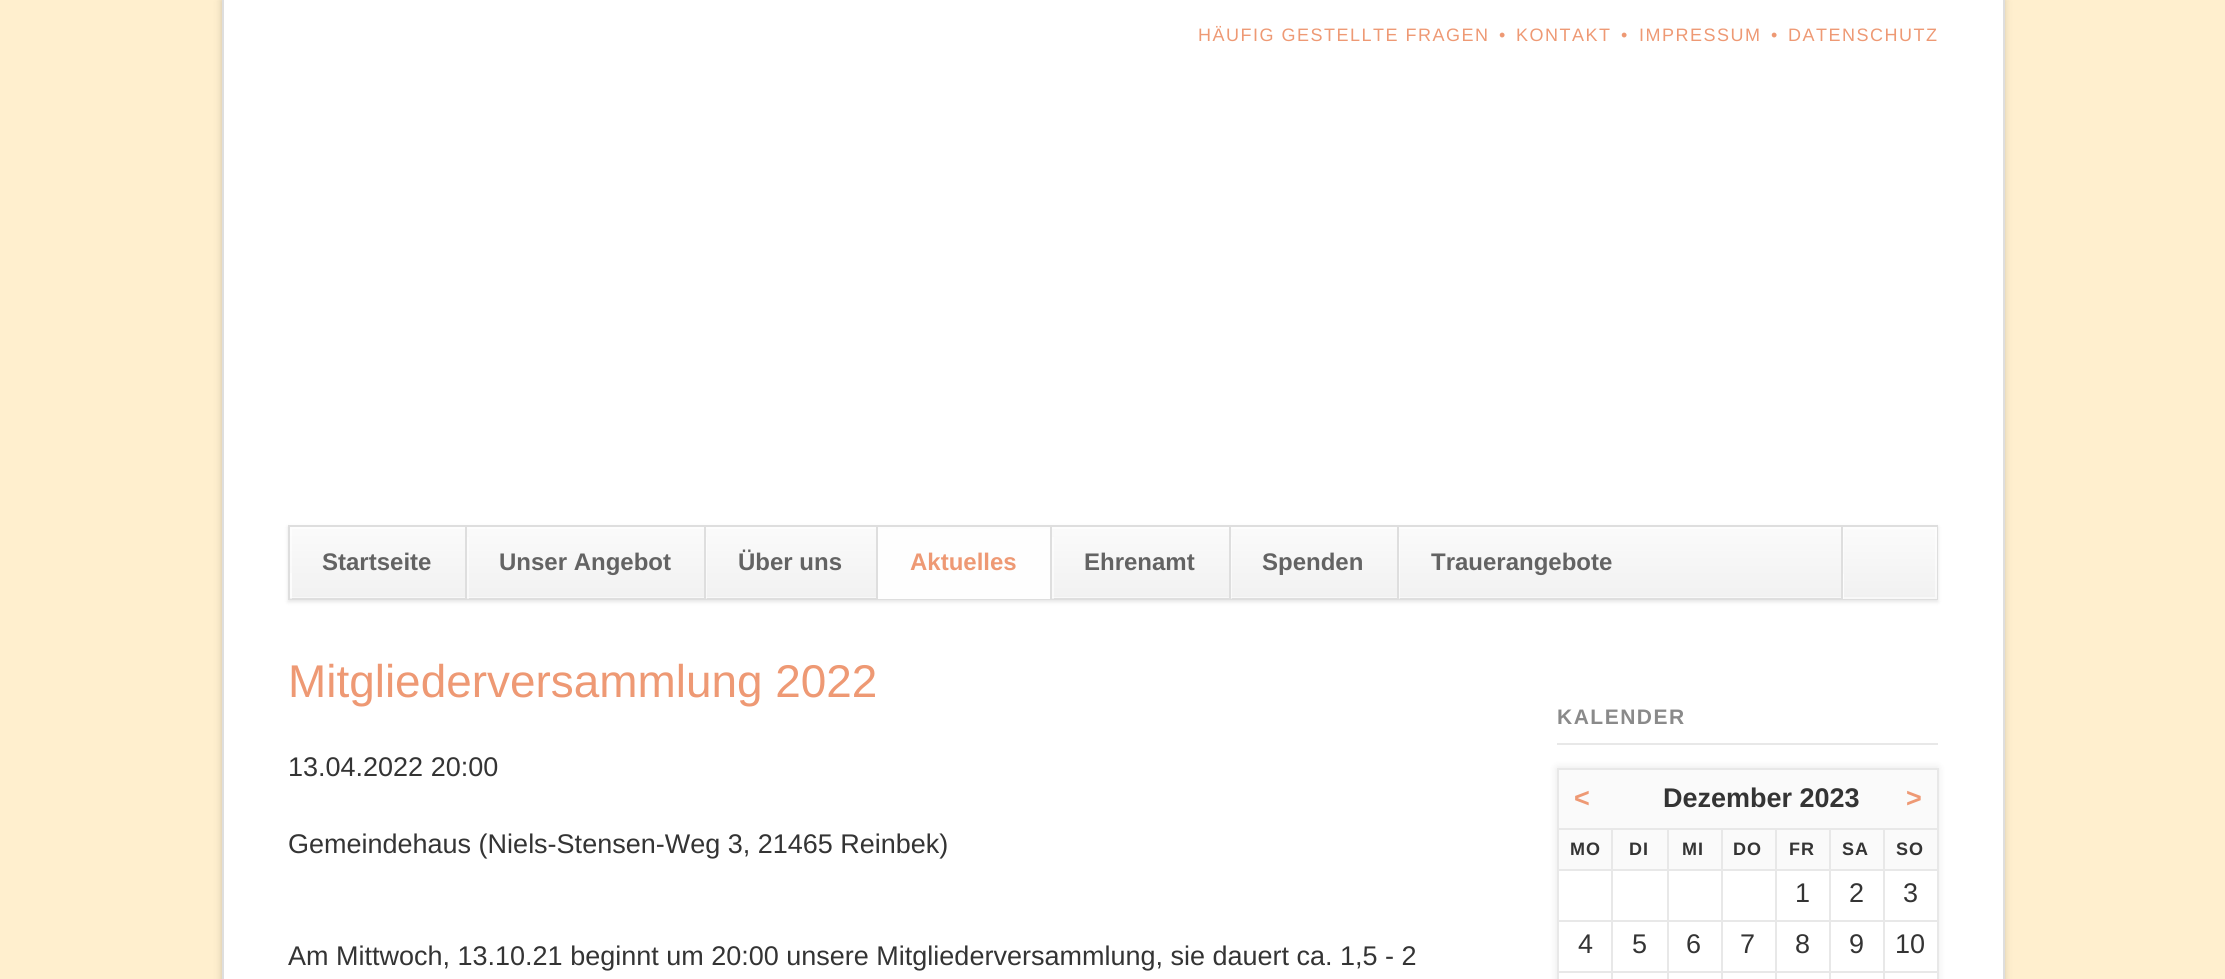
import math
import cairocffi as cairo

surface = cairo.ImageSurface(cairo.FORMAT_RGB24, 2225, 979)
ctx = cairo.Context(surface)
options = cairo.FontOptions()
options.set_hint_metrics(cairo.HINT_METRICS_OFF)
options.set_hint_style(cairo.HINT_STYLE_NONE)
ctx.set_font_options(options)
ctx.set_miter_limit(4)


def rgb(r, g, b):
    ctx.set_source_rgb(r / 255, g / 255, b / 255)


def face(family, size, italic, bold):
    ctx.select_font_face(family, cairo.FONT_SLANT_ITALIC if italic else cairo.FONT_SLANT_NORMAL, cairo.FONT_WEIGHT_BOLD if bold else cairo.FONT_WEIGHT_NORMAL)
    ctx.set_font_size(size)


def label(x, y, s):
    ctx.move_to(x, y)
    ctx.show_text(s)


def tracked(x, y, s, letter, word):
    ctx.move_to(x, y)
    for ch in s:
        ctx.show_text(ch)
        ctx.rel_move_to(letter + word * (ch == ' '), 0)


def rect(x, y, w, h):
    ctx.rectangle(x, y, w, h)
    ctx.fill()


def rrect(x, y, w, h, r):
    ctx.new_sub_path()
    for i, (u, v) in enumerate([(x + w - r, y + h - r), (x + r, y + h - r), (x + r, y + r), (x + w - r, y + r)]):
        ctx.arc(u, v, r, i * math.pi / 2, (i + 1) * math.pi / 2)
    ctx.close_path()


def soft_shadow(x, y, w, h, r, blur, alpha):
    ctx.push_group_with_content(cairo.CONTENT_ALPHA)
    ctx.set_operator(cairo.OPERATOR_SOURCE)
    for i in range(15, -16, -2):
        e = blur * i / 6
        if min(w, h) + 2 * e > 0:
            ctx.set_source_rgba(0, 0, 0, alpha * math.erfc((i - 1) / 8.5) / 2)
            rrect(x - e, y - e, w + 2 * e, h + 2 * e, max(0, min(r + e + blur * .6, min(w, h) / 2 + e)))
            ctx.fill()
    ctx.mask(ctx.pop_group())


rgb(255, 239, 206)
ctx.paint()
rgb(0, 0, 0)
soft_shadow(222, 0, 1782, 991, 0, 4, 0.2)
rgb(255, 255, 255)
rect(224, 0, 1779, 979)
rgb(222, 222, 222)
rect(2003, 0, 2, 979)
rect(222, 0, 2, 979)
face('Liberation Sans', 18, 0, 0)
rgb(238, 153, 116)
tracked(1198, 41, 'HÄUFIG GESTELLTE FRAGEN', 1.5, 0)
tracked(1499, 41, '•', 1.5, 0)
tracked(1516, 41, 'KONTAKT', 1.5, 0)
tracked(1621, 41, '•', 1.5, 0)
tracked(1639, 41, 'IMPRESSUM', 1.5, 0)
tracked(1771, 41, '•', 1.5, 0)
tracked(1788, 41, 'DATENSCHUTZ', 1.5, 0)
rgb(0, 0, 0)
soft_shadow(288, 527, 1650, 75, 0, 2, 0.1)
gradient = cairo.LinearGradient(1113, 526, 1113, 599)
gradient.add_color_stop_rgba(0, 0.984, 0.984, 0.984, 1)
gradient.add_color_stop_rgba(1, 0.945, 0.945, 0.945, 1)
ctx.set_source(gradient)
rect(290, 527, 1551, 71)
ctx.rectangle(291, 528, 1645, 70)
ctx.set_source_rgba(1, 1, 1, 0.5)
ctx.stroke()
ctx.rectangle(289, 526, 1648, 73)
rgb(222, 222, 222)
ctx.stroke()
ctx.set_source_rgba(1, 1, 1, 0.5)
rect(290, 573, 2, 26)
face('Liberation Sans', 24, 0, 1)
rgb(99, 99, 99)
label(322, 570, 'Startseite')
ctx.set_source_rgba(1, 1, 1, 0.5)
rect(467, 537, 2, 62)
rgb(222, 222, 222)
rect(465, 527, 2, 72)
rgb(99, 99, 99)
label(499, 570, 'Unser Angebot')
ctx.set_source_rgba(1, 1, 1, 0.5)
rect(706, 537, 1, 62)
rgb(222, 222, 222)
rect(704, 527, 2, 72)
rgb(99, 99, 99)
label(738, 570, 'Über uns')
rgb(254, 254, 254)
rect(878, 529, 172, 70)
rgb(222, 222, 222)
rect(876, 527, 2, 72)
rgb(238, 153, 116)
label(910, 570, 'Aktuelles')
ctx.set_source_rgba(1, 1, 1, 0.5)
rect(1052, 537, 2, 62)
rgb(222, 222, 222)
rect(1050, 527, 2, 72)
rgb(99, 99, 99)
label(1084, 570, 'Ehrenamt')
ctx.set_source_rgba(1, 1, 1, 0.5)
rect(1231, 537, 1, 62)
rgb(222, 222, 222)
rect(1229, 527, 2, 72)
rgb(99, 99, 99)
label(1262, 570, 'Spenden')
ctx.set_source_rgba(1, 1, 1, 0.5)
rect(1399, 537, 1, 62)
rgb(222, 222, 222)
rect(1397, 527, 2, 72)
rgb(99, 99, 99)
label(1431, 570, 'Trauerangebote')
gradient = cairo.LinearGradient(1889, 527, 1889, 599)
gradient.add_color_stop_rgba(0, 0.984, 0.984, 0.984, 1)
gradient.add_color_stop_rgba(1, 0.945, 0.945, 0.945, 1)
ctx.set_source(gradient)
rect(1843, 527, 94, 72)
ctx.rectangle(1843, 528, 93, 70)
ctx.set_source_rgba(1, 1, 1, 0.5)
ctx.stroke()
rect(1843, 574, 1, 25)
rgb(222, 222, 222)
rect(1841, 527, 2, 72)
face('Liberation Sans', 45.9, 0, 0)
rgb(238, 153, 116)
label(288, 697, 'Mitgliederversammlung 2022')
face('Liberation Sans', 27, 0, 0)
rgb(52, 52, 52)
label(288, 776, '13.04.2022 20:00')
label(288, 853, 'Gemeindehaus (Niels-Stensen-Weg 3, 21465 Reinbek)')
label(288, 965, 'Am Mittwoch, 13.10.21 beginnt um 20:00 unsere Mitgliederversammlung, sie dauert ca. 1,5 - 2')
rgb(232, 232, 232)
rect(1557, 743, 381, 2)
face('Liberation Sans', 21, 0, 1)
rgb(138, 138, 138)
tracked(1557, 724, 'KALENDER', 1.5, 0)
ctx.save()
ctx.set_fill_rule(cairo.FILL_RULE_EVEN_ODD)
ctx.new_path()
ctx.move_to(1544, 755)
ctx.line_to(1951, 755)
ctx.line_to(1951, 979)
ctx.line_to(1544, 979)
ctx.close_path()
ctx.move_to(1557, 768)
ctx.line_to(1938, 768)
ctx.line_to(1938, 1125)
ctx.line_to(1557, 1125)
ctx.close_path()
ctx.clip()
rgb(0, 0, 0)
soft_shadow(1557, 768, 381, 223, 0, 4, 0.1)
ctx.restore()
rgb(250, 250, 250)
rect(1559, 770, 378, 58)
rgb(232, 232, 232)
rect(1557, 768, 381, 2)
rect(1883, 828, 55, 2)
rect(1883, 869, 55, 2)
rect(1883, 920, 55, 2)
rect(1883, 971, 55, 2)
rect(1883, 971, 2, 8)
rect(1829, 971, 55, 2)
rect(1883, 920, 2, 52)
rect(1829, 920, 55, 2)
rect(1883, 869, 2, 52)
rect(1829, 869, 55, 2)
rect(1883, 828, 2, 42)
rect(1829, 828, 55, 2)
rect(1829, 971, 2, 8)
rect(1775, 971, 55, 2)
rect(1829, 920, 2, 52)
rect(1775, 920, 55, 2)
rect(1829, 869, 2, 52)
rect(1775, 869, 55, 2)
rect(1829, 828, 2, 42)
rect(1775, 828, 55, 2)
rect(1775, 971, 2, 8)
rect(1721, 971, 55, 2)
rect(1775, 920, 2, 52)
rect(1721, 920, 55, 2)
rect(1775, 869, 2, 52)
rect(1721, 869, 55, 2)
rect(1775, 828, 2, 42)
rect(1721, 828, 55, 2)
rect(1721, 971, 2, 8)
rect(1667, 971, 55, 2)
rect(1721, 920, 2, 52)
rect(1667, 920, 55, 2)
rect(1721, 869, 2, 52)
rect(1667, 869, 55, 2)
rect(1721, 828, 2, 42)
rect(1667, 828, 55, 2)
rect(1667, 971, 2, 8)
rect(1611, 971, 57, 2)
rect(1667, 920, 2, 52)
rect(1611, 920, 57, 2)
rect(1667, 869, 2, 52)
rect(1611, 869, 57, 2)
rect(1667, 828, 2, 42)
rect(1611, 828, 57, 2)
rect(1611, 971, 2, 8)
rect(1557, 971, 56, 2)
rect(1611, 920, 2, 52)
rect(1557, 920, 56, 2)
rect(1611, 869, 2, 52)
rect(1557, 869, 56, 2)
rect(1611, 828, 2, 42)
rect(1557, 828, 56, 2)
rect(1557, 971, 2, 8)
rect(1557, 920, 2, 52)
rect(1557, 869, 2, 52)
rect(1557, 828, 2, 42)
rect(1557, 768, 2, 62)
face('Liberation Sans', 27, 0, 1)
rgb(238, 153, 116)
label(1574, 807, '<')
rgb(52, 52, 52)
label(1663, 807, 'Dezember 2023')
rgb(232, 232, 232)
rect(1937, 971, 2, 8)
rect(1937, 920, 2, 52)
rect(1937, 869, 2, 52)
rect(1937, 828, 2, 42)
rect(1937, 768, 2, 62)
rgb(238, 153, 116)
label(1906, 807, '>')
rgb(250, 250, 250)
rect(1559, 830, 52, 39)
face('Liberation Sans', 18, 0, 1)
rgb(52, 52, 52)
tracked(1570, 855, 'MO', 1, 0)
rgb(250, 250, 250)
rect(1613, 830, 54, 39)
rgb(52, 52, 52)
tracked(1629, 855, 'DI', 1, 0)
rgb(250, 250, 250)
rect(1669, 830, 52, 39)
rgb(52, 52, 52)
tracked(1682, 855, 'MI', 1, 0)
rgb(250, 250, 250)
rect(1723, 830, 52, 39)
rgb(52, 52, 52)
tracked(1733, 855, 'DO', 1, 0)
rgb(250, 250, 250)
rect(1777, 830, 52, 39)
rgb(52, 52, 52)
tracked(1789, 855, 'FR', 1, 0)
rgb(250, 250, 250)
rect(1831, 830, 52, 39)
rgb(52, 52, 52)
tracked(1842, 855, 'SA', 1, 0)
rgb(250, 250, 250)
rect(1885, 830, 52, 39)
rgb(52, 52, 52)
tracked(1896, 855, 'SO', 1, 0)
face('Liberation Sans', 27, 0, 0)
label(1795, 902, '1')
label(1849, 902, '2')
label(1903, 902, '3')
label(1578, 953, '4')
label(1632, 953, '5')
label(1686, 953, '6')
label(1740, 953, '7')
label(1795, 953, '8')
label(1849, 953, '9')
label(1895, 953, '10')
surface.write_to_png('render.png')
